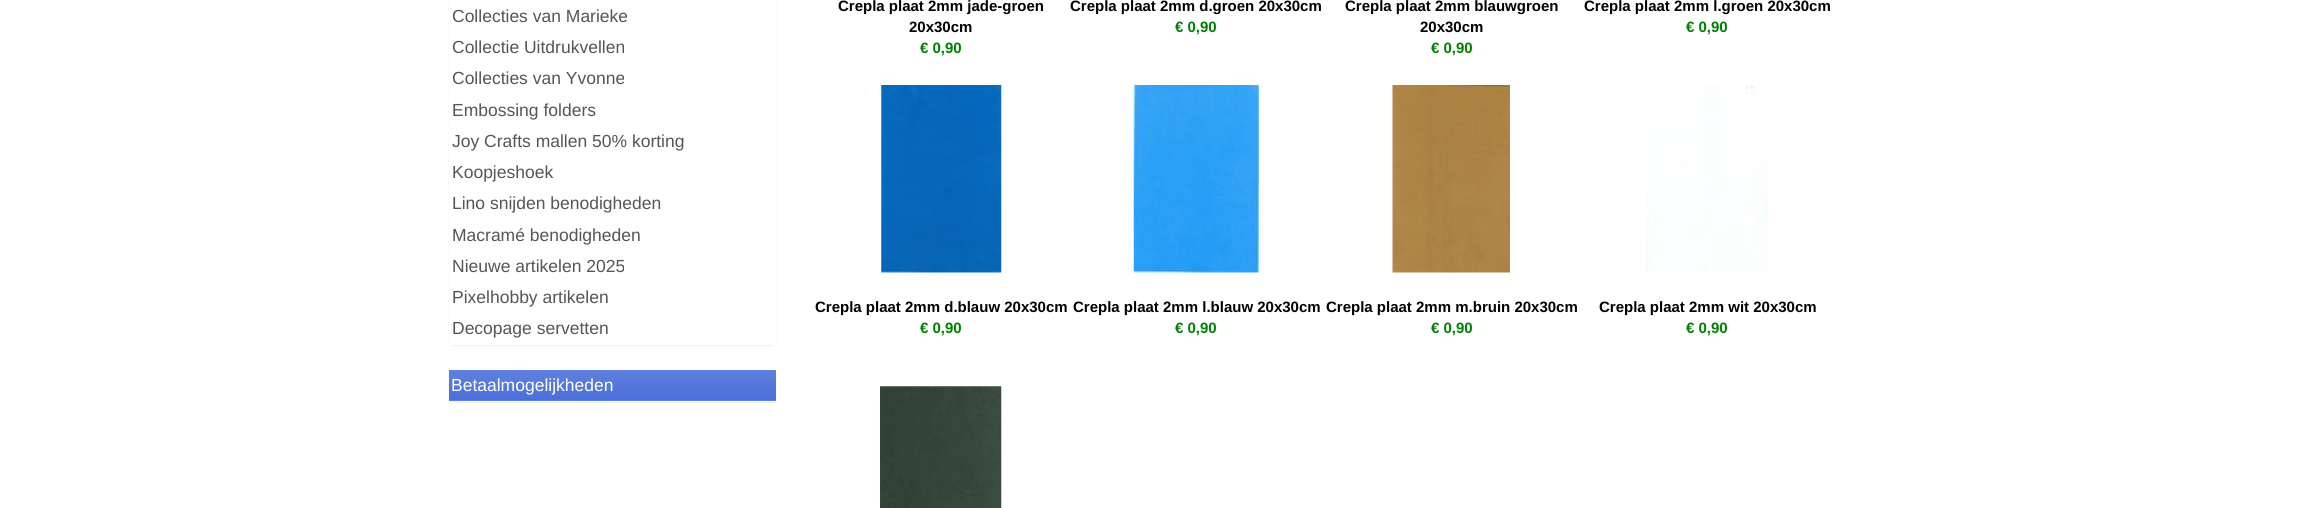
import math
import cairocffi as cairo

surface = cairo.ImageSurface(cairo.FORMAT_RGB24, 2321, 508)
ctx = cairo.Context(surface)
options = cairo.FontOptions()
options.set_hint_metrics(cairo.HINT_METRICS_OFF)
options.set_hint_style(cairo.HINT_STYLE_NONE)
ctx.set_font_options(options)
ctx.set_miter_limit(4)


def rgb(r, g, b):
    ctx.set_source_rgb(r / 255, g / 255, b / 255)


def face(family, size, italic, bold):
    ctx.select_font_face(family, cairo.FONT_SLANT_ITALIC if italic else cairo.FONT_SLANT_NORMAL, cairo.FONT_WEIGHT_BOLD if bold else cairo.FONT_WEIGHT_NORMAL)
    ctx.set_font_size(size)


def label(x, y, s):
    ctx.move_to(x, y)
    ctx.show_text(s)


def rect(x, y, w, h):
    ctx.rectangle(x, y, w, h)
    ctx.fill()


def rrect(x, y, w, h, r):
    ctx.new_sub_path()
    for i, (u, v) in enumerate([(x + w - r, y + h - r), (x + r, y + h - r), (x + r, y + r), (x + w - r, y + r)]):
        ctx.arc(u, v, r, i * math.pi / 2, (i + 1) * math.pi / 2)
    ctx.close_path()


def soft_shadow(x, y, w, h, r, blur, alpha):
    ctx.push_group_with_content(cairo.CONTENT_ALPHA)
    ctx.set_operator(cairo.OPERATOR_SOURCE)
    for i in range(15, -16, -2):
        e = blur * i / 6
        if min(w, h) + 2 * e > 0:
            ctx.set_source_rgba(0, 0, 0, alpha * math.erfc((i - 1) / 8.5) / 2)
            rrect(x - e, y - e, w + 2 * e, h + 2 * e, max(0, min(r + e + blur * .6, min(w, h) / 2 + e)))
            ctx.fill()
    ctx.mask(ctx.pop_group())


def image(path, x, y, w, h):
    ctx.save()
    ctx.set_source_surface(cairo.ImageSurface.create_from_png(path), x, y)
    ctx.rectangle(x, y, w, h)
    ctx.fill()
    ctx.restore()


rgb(255, 255, 255)
ctx.paint()
ctx.save()
ctx.set_fill_rule(cairo.FILL_RULE_EVEN_ODD)
ctx.new_path()
ctx.move_to(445, 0)
ctx.line_to(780, 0)
ctx.line_to(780, 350)
ctx.line_to(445, 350)
ctx.close_path()
ctx.move_to(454, -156)
ctx.line_to(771, -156)
ctx.curve_to(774, -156, 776, -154, 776, -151)
ctx.line_to(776, 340)
ctx.curve_to(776, 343, 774, 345, 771, 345)
ctx.line_to(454, 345)
ctx.curve_to(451, 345, 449, 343, 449, 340)
ctx.line_to(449, -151)
ctx.curve_to(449, -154, 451, -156, 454, -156)
ctx.close_path()
ctx.clip()
rgb(0, 0, 0)
soft_shadow(449, -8, 327, 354, 5, 1, 0.07)
ctx.restore()
face('Liberation Sans', 17.5, 0, 0)
rgb(85, 85, 85)
label(452, 22, 'Collecties van Marieke')
label(452, 53, 'Collectie Uitdrukvellen')
label(452, 84, 'Collecties van Yvonne')
label(452, 116, 'Embossing folders')
label(452, 147, 'Joy Crafts mallen 50% korting')
label(452, 178, 'Koopjeshoek')
label(452, 209, 'Lino snijden benodigheden')
label(452, 241, 'Macramé benodigheden')
label(452, 272, 'Nieuwe artikelen 2025')
label(452, 303, 'Pixelhobby artikelen')
label(452, 334, 'Decopage servetten')
rgb(0, 0, 0)
soft_shadow(449, 371, 327, 32, 0, 1, 0.05)
rgb(96, 128, 221)
rect(449, 400, 327, 1)
gradient = cairo.LinearGradient(613, 370, 613, 400)
gradient.add_color_stop_rgba(0, 0.376, 0.502, 0.867, 1)
gradient.add_color_stop_rgba(1, 0.294, 0.435, 0.851, 1)
ctx.set_source(gradient)
rect(449, 370, 327, 30)
rgb(255, 255, 255)
label(451, 391, 'Betaalmogelijkheden')
face('Liberation Sans', 15, 0, 1)
rgb(0, 0, 0)
label(838, 11, 'Crepla plaat 2mm jade-groen')
label(909, 32, '20x30cm')
rgb(0, 128, 0)
label(920, 53, '€ 0,90')
rgb(0, 0, 0)
label(1070, 11, 'Crepla plaat 2mm d.groen 20x30cm')
rgb(0, 128, 0)
label(1175, 32, '€ 0,90')
rgb(0, 0, 0)
label(1345, 11, 'Crepla plaat 2mm blauwgroen')
label(1420, 32, '20x30cm')
rgb(0, 128, 0)
label(1431, 53, '€ 0,90')
rgb(0, 0, 0)
label(1584, 11, 'Crepla plaat 2mm l.groen 20x30cm')
rgb(0, 128, 0)
label(1686, 32, '€ 0,90')
image('image0.png', 881, 85, 121, 188)
rgb(0, 0, 0)
label(815, 312, 'Crepla plaat 2mm d.blauw 20x30cm')
rgb(0, 128, 0)
label(920, 333, '€ 0,90')
image('image1.png', 1133, 85, 126, 188)
rgb(0, 0, 0)
label(1073, 312, 'Crepla plaat 2mm l.blauw 20x30cm')
rgb(0, 128, 0)
label(1175, 333, '€ 0,90')
image('image2.png', 1392, 85, 118, 188)
rgb(0, 0, 0)
label(1326, 312, 'Crepla plaat 2mm m.bruin 20x30cm')
rgb(0, 128, 0)
label(1431, 333, '€ 0,90')
image('image3.png', 1646, 85, 122, 188)
rgb(0, 0, 0)
label(1599, 312, 'Crepla plaat 2mm wit 20x30cm')
rgb(0, 128, 0)
label(1686, 333, '€ 0,90')
image('image4.png', 880, 386, 122, 122)
surface.write_to_png('render.png')
